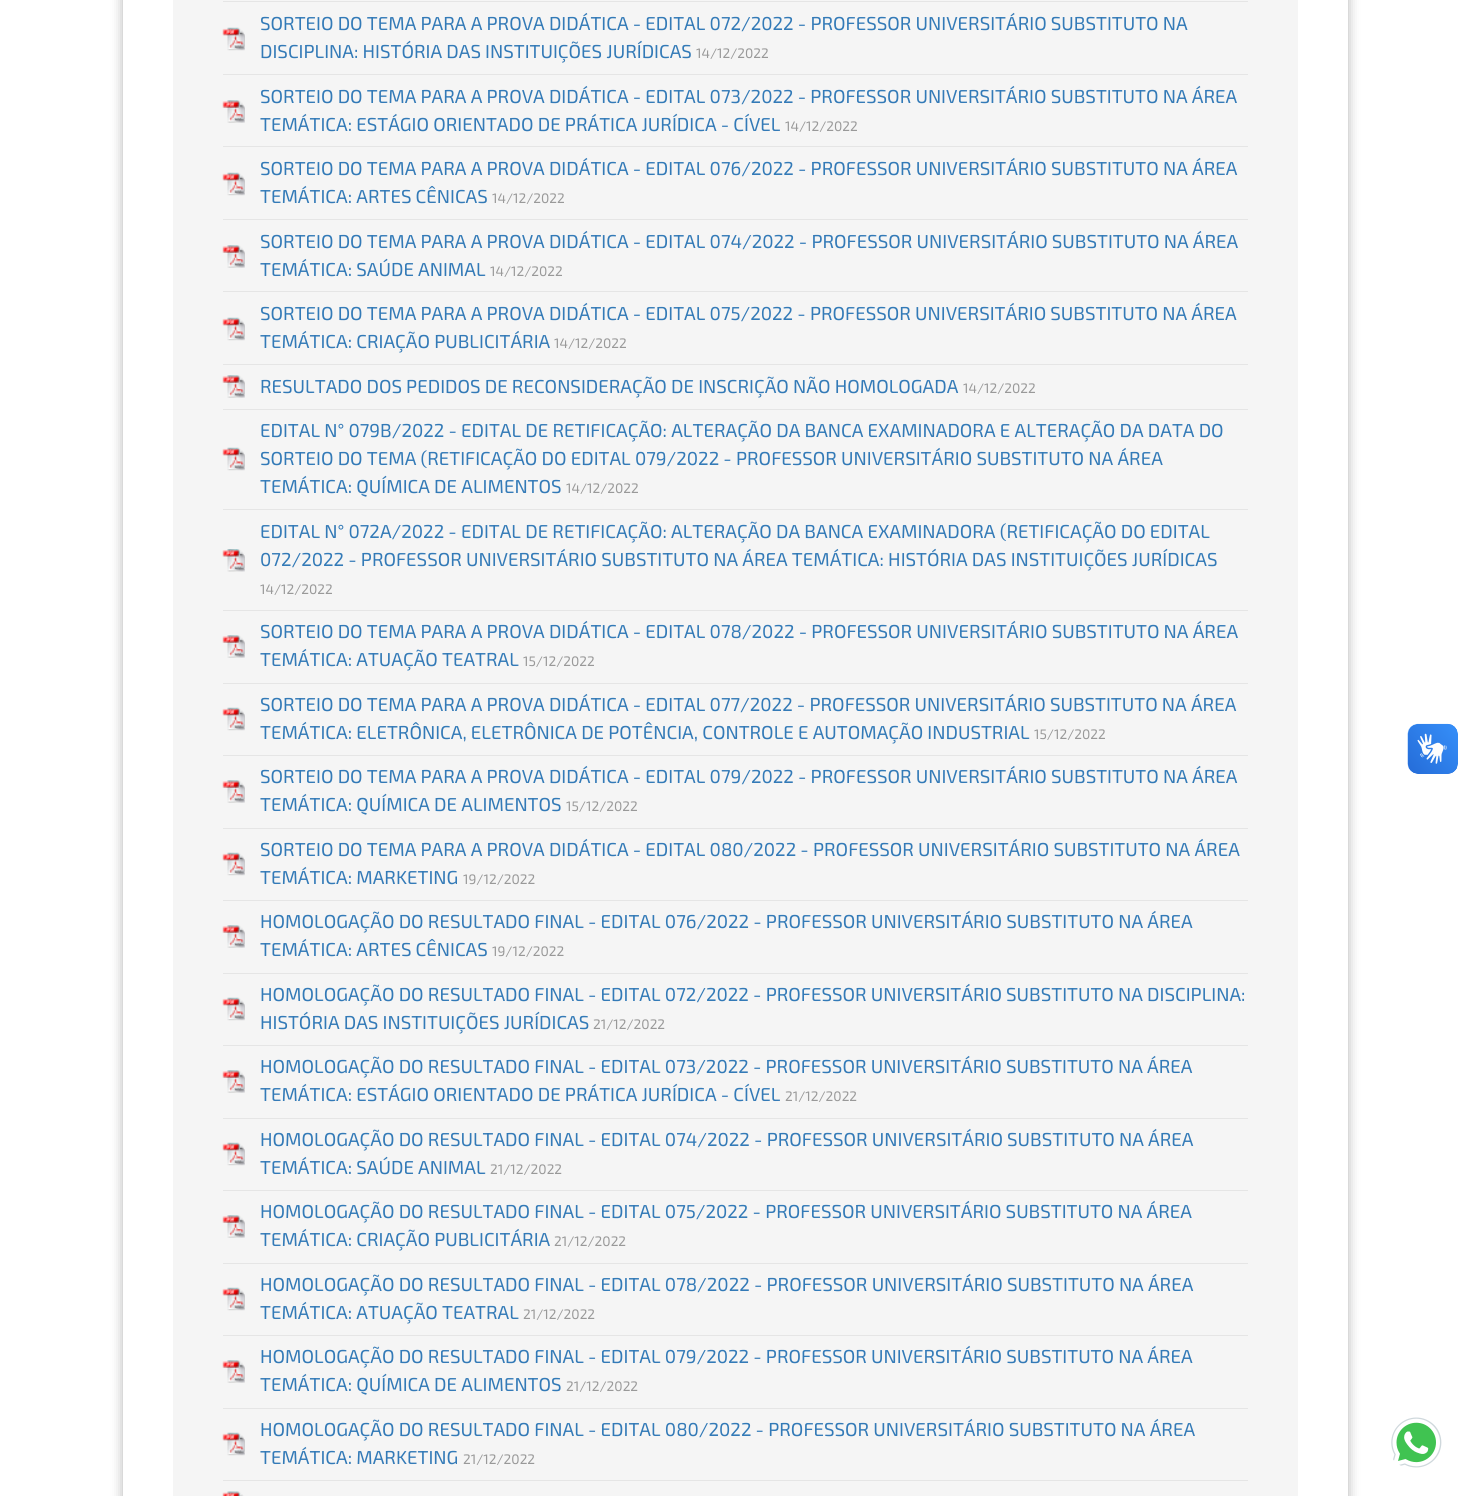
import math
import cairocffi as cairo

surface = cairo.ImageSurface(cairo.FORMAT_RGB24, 1470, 1496)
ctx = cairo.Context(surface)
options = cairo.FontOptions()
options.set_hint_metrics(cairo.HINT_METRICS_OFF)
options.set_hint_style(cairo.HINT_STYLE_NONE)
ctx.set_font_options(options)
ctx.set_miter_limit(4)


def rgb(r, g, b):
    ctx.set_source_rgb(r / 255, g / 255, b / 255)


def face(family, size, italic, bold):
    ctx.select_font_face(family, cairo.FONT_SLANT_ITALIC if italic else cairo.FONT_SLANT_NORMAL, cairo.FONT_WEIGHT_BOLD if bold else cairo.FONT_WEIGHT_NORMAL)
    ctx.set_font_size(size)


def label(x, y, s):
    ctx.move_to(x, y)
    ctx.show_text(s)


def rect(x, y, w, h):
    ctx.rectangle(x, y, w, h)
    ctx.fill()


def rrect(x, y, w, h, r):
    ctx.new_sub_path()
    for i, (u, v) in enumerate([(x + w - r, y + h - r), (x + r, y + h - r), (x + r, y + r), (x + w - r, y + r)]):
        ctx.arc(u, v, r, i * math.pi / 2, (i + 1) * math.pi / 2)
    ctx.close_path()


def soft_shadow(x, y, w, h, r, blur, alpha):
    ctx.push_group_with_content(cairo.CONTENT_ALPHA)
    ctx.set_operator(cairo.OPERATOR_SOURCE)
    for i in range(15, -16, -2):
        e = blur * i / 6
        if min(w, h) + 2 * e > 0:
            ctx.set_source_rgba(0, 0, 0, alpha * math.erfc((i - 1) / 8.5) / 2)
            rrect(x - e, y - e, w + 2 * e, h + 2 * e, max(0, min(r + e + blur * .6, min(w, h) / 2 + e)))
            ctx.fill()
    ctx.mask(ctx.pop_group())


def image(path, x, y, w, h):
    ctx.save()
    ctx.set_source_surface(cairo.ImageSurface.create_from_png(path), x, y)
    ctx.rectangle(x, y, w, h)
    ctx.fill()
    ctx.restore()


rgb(255, 255, 255)
ctx.paint()
rgb(0, 0, 0)
soft_shadow(123, -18, 1225, 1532, 0, 6, 0.3)
rgb(255, 255, 255)
rect(123, 0, 1225, 1496)
rgb(245, 245, 245)
rect(173, 0, 1125, 1496)
rgb(229, 229, 229)
rect(223, 1, 1025, 1)
image('image0.png', 222, 27, 23, 24)
rect(223, 74, 1025, 1)
face('Exo 2', 18.75, 0, 0)
rgb(51, 122, 183)
label(260, 30, 'SORTEIO DO TEMA PARA A PROVA DIDÁTICA - EDITAL 072/2022 - PROFESSOR UNIVERSITÁRIO SUBSTITUTO NA')
label(260, 58, 'DISCIPLINA: HISTÓRIA DAS INSTITUIÇÕES JURÍDICAS')
face('Exo 2', 13.75, 0, 0)
rgb(153, 153, 153)
label(696, 58, '14/12/2022')
image('image1.png', 222, 100, 23, 23)
rgb(229, 229, 229)
rect(223, 146, 1025, 1)
face('Exo 2', 18.75, 0, 0)
rgb(51, 122, 183)
label(260, 103, 'SORTEIO DO TEMA PARA A PROVA DIDÁTICA - EDITAL 073/2022 - PROFESSOR UNIVERSITÁRIO SUBSTITUTO NA ÁREA')
label(260, 131, 'TEMÁTICA: ESTÁGIO ORIENTADO DE PRÁTICA JURÍDICA - CÍVEL')
face('Exo 2', 13.75, 0, 0)
rgb(153, 153, 153)
label(785, 131, '14/12/2022')
image('image0.png', 222, 172, 23, 24)
rgb(229, 229, 229)
rect(223, 219, 1025, 1)
face('Exo 2', 18.75, 0, 0)
rgb(51, 122, 183)
label(260, 175, 'SORTEIO DO TEMA PARA A PROVA DIDÁTICA - EDITAL 076/2022 - PROFESSOR UNIVERSITÁRIO SUBSTITUTO NA ÁREA')
label(260, 203, 'TEMÁTICA: ARTES CÊNICAS')
face('Exo 2', 13.75, 0, 0)
rgb(153, 153, 153)
label(492, 203, '14/12/2022')
image('image1.png', 222, 245, 23, 23)
rgb(229, 229, 229)
rect(223, 291, 1025, 1)
face('Exo 2', 18.75, 0, 0)
rgb(51, 122, 183)
label(260, 248, 'SORTEIO DO TEMA PARA A PROVA DIDÁTICA - EDITAL 074/2022 - PROFESSOR UNIVERSITÁRIO SUBSTITUTO NA ÁREA')
label(260, 276, 'TEMÁTICA: SAÚDE ANIMAL')
face('Exo 2', 13.75, 0, 0)
rgb(153, 153, 153)
label(490, 276, '14/12/2022')
image('image0.png', 222, 317, 23, 24)
rgb(229, 229, 229)
rect(223, 364, 1025, 1)
face('Exo 2', 18.75, 0, 0)
rgb(51, 122, 183)
label(260, 320, 'SORTEIO DO TEMA PARA A PROVA DIDÁTICA - EDITAL 075/2022 - PROFESSOR UNIVERSITÁRIO SUBSTITUTO NA ÁREA')
label(260, 348, 'TEMÁTICA: CRIAÇÃO PUBLICITÁRIA')
face('Exo 2', 13.75, 0, 0)
rgb(153, 153, 153)
label(554, 348, '14/12/2022')
image('image1.png', 222, 375, 23, 23)
rgb(229, 229, 229)
rect(223, 409, 1025, 1)
face('Exo 2', 18.75, 0, 0)
rgb(51, 122, 183)
label(260, 393, 'RESULTADO DOS PEDIDOS DE RECONSIDERAÇÃO DE INSCRIÇÃO NÃO HOMOLOGADA')
face('Exo 2', 13.75, 0, 0)
rgb(153, 153, 153)
label(963, 393, '14/12/2022')
image('image0.png', 222, 447, 23, 24)
rgb(229, 229, 229)
rect(223, 509, 1025, 1)
face('Exo 2', 18.75, 0, 0)
rgb(51, 122, 183)
label(260, 437, 'EDITAL N° 079B/2022 - EDITAL DE RETIFICAÇÃO: ALTERAÇÃO DA BANCA EXAMINADORA E ALTERAÇÃO DA DATA DO')
label(260, 465, 'SORTEIO DO TEMA (RETIFICAÇÃO DO EDITAL 079/2022 - PROFESSOR UNIVERSITÁRIO SUBSTITUTO NA ÁREA')
label(260, 493, 'TEMÁTICA: QUÍMICA DE ALIMENTOS')
face('Exo 2', 13.75, 0, 0)
rgb(153, 153, 153)
label(566, 493, '14/12/2022')
image('image2.png', 222, 549, 23, 23)
rgb(229, 229, 229)
rect(223, 610, 1025, 1)
face('Exo 2', 18.75, 0, 0)
rgb(51, 122, 183)
label(260, 538, 'EDITAL N° 072A/2022 - EDITAL DE RETIFICAÇÃO: ALTERAÇÃO DA BANCA EXAMINADORA (RETIFICAÇÃO DO EDITAL')
label(260, 566, '072/2022 - PROFESSOR UNIVERSITÁRIO SUBSTITUTO NA ÁREA TEMÁTICA: HISTÓRIA DAS INSTITUIÇÕES JURÍDICAS')
face('Exo 2', 13.75, 0, 0)
rgb(153, 153, 153)
label(260, 594, '14/12/2022')
image('image1.png', 222, 635, 23, 23)
rgb(229, 229, 229)
rect(223, 683, 1025, 1)
face('Exo 2', 18.75, 0, 0)
rgb(51, 122, 183)
label(260, 638, 'SORTEIO DO TEMA PARA A PROVA DIDÁTICA - EDITAL 078/2022 - PROFESSOR UNIVERSITÁRIO SUBSTITUTO NA ÁREA')
label(260, 666, 'TEMÁTICA: ATUAÇÃO TEATRAL')
face('Exo 2', 13.75, 0, 0)
rgb(153, 153, 153)
label(523, 666, '15/12/2022')
image('image0.png', 222, 707, 23, 24)
rgb(229, 229, 229)
rect(223, 755, 1025, 1)
face('Exo 2', 18.75, 0, 0)
rgb(51, 122, 183)
label(260, 711, 'SORTEIO DO TEMA PARA A PROVA DIDÁTICA - EDITAL 077/2022 - PROFESSOR UNIVERSITÁRIO SUBSTITUTO NA ÁREA')
label(260, 739, 'TEMÁTICA: ELETRÔNICA, ELETRÔNICA DE POTÊNCIA, CONTROLE E AUTOMAÇÃO INDUSTRIAL')
face('Exo 2', 13.75, 0, 0)
rgb(153, 153, 153)
label(1034, 739, '15/12/2022')
image('image1.png', 222, 780, 23, 23)
rgb(229, 229, 229)
rect(223, 828, 1025, 1)
face('Exo 2', 18.75, 0, 0)
rgb(51, 122, 183)
label(260, 783, 'SORTEIO DO TEMA PARA A PROVA DIDÁTICA - EDITAL 079/2022 - PROFESSOR UNIVERSITÁRIO SUBSTITUTO NA ÁREA')
label(260, 811, 'TEMÁTICA: QUÍMICA DE ALIMENTOS')
face('Exo 2', 13.75, 0, 0)
rgb(153, 153, 153)
label(566, 811, '15/12/2022')
image('image0.png', 222, 852, 23, 24)
rgb(229, 229, 229)
rect(223, 900, 1025, 1)
face('Exo 2', 18.75, 0, 0)
rgb(51, 122, 183)
label(260, 856, 'SORTEIO DO TEMA PARA A PROVA DIDÁTICA - EDITAL 080/2022 - PROFESSOR UNIVERSITÁRIO SUBSTITUTO NA ÁREA')
label(260, 884, 'TEMÁTICA: MARKETING')
face('Exo 2', 13.75, 0, 0)
rgb(153, 153, 153)
label(463, 884, '19/12/2022')
image('image1.png', 222, 925, 23, 23)
rgb(229, 229, 229)
rect(223, 973, 1025, 1)
face('Exo 2', 18.75, 0, 0)
rgb(51, 122, 183)
label(260, 928, 'HOMOLOGAÇÃO DO RESULTADO FINAL - EDITAL 076/2022 - PROFESSOR UNIVERSITÁRIO SUBSTITUTO NA ÁREA')
label(260, 956, 'TEMÁTICA: ARTES CÊNICAS')
face('Exo 2', 13.75, 0, 0)
rgb(153, 153, 153)
label(492, 956, '19/12/2022')
image('image0.png', 222, 997, 23, 24)
rgb(229, 229, 229)
rect(223, 1045, 1025, 1)
face('Exo 2', 18.75, 0, 0)
rgb(51, 122, 183)
label(260, 1001, 'HOMOLOGAÇÃO DO RESULTADO FINAL - EDITAL 072/2022 - PROFESSOR UNIVERSITÁRIO SUBSTITUTO NA DISCIPLINA:')
label(260, 1029, 'HISTÓRIA DAS INSTITUIÇÕES JURÍDICAS')
face('Exo 2', 13.75, 0, 0)
rgb(153, 153, 153)
label(593, 1029, '21/12/2022')
image('image1.png', 222, 1070, 23, 23)
rgb(229, 229, 229)
rect(223, 1118, 1025, 1)
face('Exo 2', 18.75, 0, 0)
rgb(51, 122, 183)
label(260, 1073, 'HOMOLOGAÇÃO DO RESULTADO FINAL - EDITAL 073/2022 - PROFESSOR UNIVERSITÁRIO SUBSTITUTO NA ÁREA')
label(260, 1101, 'TEMÁTICA: ESTÁGIO ORIENTADO DE PRÁTICA JURÍDICA - CÍVEL')
face('Exo 2', 13.75, 0, 0)
rgb(153, 153, 153)
label(785, 1101, '21/12/2022')
image('image0.png', 222, 1142, 23, 24)
rgb(229, 229, 229)
rect(223, 1190, 1025, 1)
face('Exo 2', 18.75, 0, 0)
rgb(51, 122, 183)
label(260, 1146, 'HOMOLOGAÇÃO DO RESULTADO FINAL - EDITAL 074/2022 - PROFESSOR UNIVERSITÁRIO SUBSTITUTO NA ÁREA')
label(260, 1174, 'TEMÁTICA: SAÚDE ANIMAL')
face('Exo 2', 13.75, 0, 0)
rgb(153, 153, 153)
label(490, 1174, '21/12/2022')
image('image1.png', 222, 1215, 23, 23)
rgb(229, 229, 229)
rect(223, 1263, 1025, 1)
face('Exo 2', 18.75, 0, 0)
rgb(51, 122, 183)
label(260, 1218, 'HOMOLOGAÇÃO DO RESULTADO FINAL - EDITAL 075/2022 - PROFESSOR UNIVERSITÁRIO SUBSTITUTO NA ÁREA')
label(260, 1246, 'TEMÁTICA: CRIAÇÃO PUBLICITÁRIA')
face('Exo 2', 13.75, 0, 0)
rgb(153, 153, 153)
label(554, 1246, '21/12/2022')
image('image0.png', 222, 1287, 23, 24)
rgb(229, 229, 229)
rect(223, 1335, 1025, 1)
face('Exo 2', 18.75, 0, 0)
rgb(51, 122, 183)
label(260, 1291, 'HOMOLOGAÇÃO DO RESULTADO FINAL - EDITAL 078/2022 - PROFESSOR UNIVERSITÁRIO SUBSTITUTO NA ÁREA')
label(260, 1319, 'TEMÁTICA: ATUAÇÃO TEATRAL')
face('Exo 2', 13.75, 0, 0)
rgb(153, 153, 153)
label(523, 1319, '21/12/2022')
image('image1.png', 222, 1360, 23, 23)
rgb(229, 229, 229)
rect(223, 1408, 1025, 1)
face('Exo 2', 18.75, 0, 0)
rgb(51, 122, 183)
label(260, 1363, 'HOMOLOGAÇÃO DO RESULTADO FINAL - EDITAL 079/2022 - PROFESSOR UNIVERSITÁRIO SUBSTITUTO NA ÁREA')
label(260, 1391, 'TEMÁTICA: QUÍMICA DE ALIMENTOS')
face('Exo 2', 13.75, 0, 0)
rgb(153, 153, 153)
label(566, 1391, '21/12/2022')
image('image0.png', 222, 1432, 23, 24)
rgb(229, 229, 229)
rect(223, 1480, 1025, 1)
face('Exo 2', 18.75, 0, 0)
rgb(51, 122, 183)
label(260, 1436, 'HOMOLOGAÇÃO DO RESULTADO FINAL - EDITAL 080/2022 - PROFESSOR UNIVERSITÁRIO SUBSTITUTO NA ÁREA')
label(260, 1464, 'TEMÁTICA: MARKETING')
face('Exo 2', 13.75, 0, 0)
rgb(153, 153, 153)
label(463, 1464, '21/12/2022')
image('image3.png', 222, 1491, 22, 5)
image('image4.png', 1407, 723, 51, 51)
image('image5.png', 1408, 724, 50, 50)
image('image6.png', 1391, 1417, 51, 51)
surface.write_to_png('render.png')
